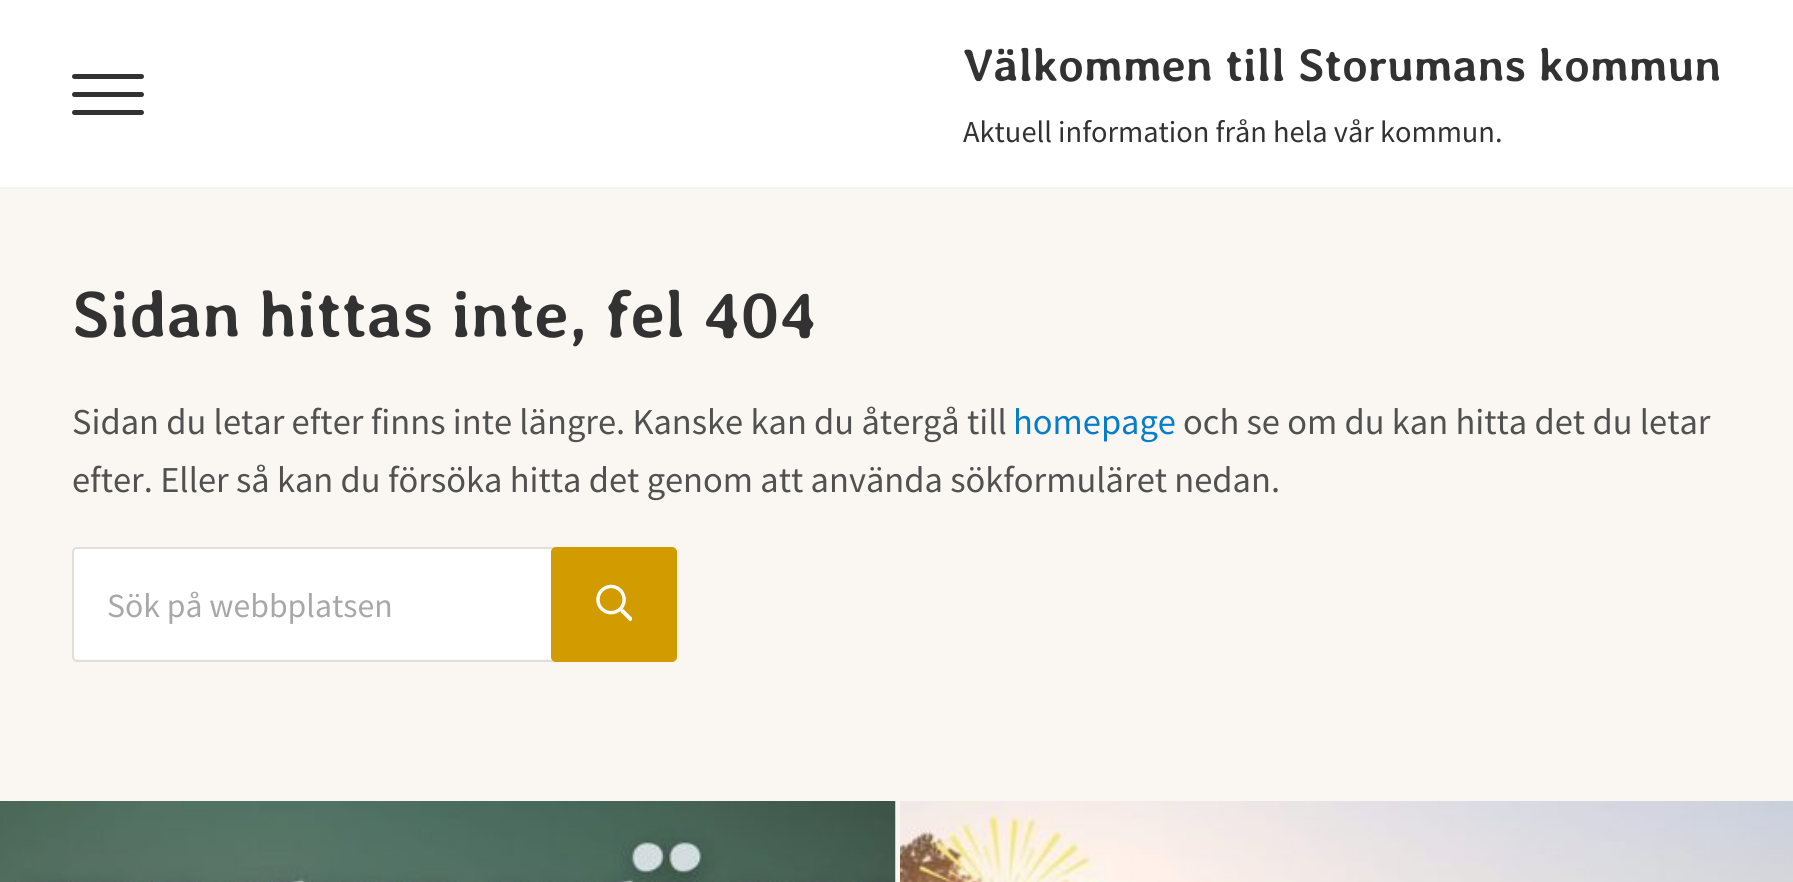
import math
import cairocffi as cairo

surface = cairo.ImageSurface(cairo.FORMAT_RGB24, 1793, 882)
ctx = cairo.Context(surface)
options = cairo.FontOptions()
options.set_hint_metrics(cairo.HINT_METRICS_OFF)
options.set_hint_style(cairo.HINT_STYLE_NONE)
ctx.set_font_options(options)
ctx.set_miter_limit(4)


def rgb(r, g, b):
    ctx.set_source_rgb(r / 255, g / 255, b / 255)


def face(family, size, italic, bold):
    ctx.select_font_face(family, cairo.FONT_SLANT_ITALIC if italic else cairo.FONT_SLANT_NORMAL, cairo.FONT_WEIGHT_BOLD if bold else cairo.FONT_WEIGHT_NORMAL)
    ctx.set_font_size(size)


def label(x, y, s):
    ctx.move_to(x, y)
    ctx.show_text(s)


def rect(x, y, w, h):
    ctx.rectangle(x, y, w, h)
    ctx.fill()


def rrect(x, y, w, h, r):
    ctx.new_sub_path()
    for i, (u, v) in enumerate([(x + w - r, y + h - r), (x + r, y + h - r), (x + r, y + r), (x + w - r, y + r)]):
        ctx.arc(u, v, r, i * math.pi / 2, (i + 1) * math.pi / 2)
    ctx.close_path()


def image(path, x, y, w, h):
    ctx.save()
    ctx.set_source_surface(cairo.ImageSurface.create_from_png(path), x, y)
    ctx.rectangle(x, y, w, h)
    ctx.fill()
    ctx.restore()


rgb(250, 247, 242)
ctx.paint()
rgb(255, 255, 255)
rect(0, 0, 1793, 187)
rgb(243, 243, 244)
rect(0, 187, 1793, 2)
rgb(50, 50, 50)
rrect(72, 92, 72, 5, 2.5)
ctx.fill()
rrect(72, 74, 72, 5, 2.5)
ctx.fill()
rrect(72, 110, 72, 5, 2.5)
ctx.fill()
face('Averia Libre', 46.1, 0, 1)
label(963, 81, 'Välkommen till Storumans kommun')
face('Source Sans Pro', 30.4, 0, 0)
label(963, 142, 'Aktuell information från hela vår kommun.')
face('Averia Libre', 65.75, 0, 1)
label(72, 337, 'Sidan hittas inte, fel 404')
face('Source Sans Pro', 36.45, 0, 0)
rgb(81, 81, 81)
label(72, 434, 'Sidan du letar efter finns inte längre. Kanske kan du återgå till')
rgb(6, 124, 204)
label(1013, 434, 'homepage')
rgb(81, 81, 81)
label(1183, 434, 'och se om du kan hitta det du letar')
label(72, 492, 'efter. Eller så kan du försöka hitta det genom att använda sökformuläret nedan.')
rgb(255, 255, 255)
rrect(74, 549, 522, 110, 2)
ctx.fill()
rrect(73, 548, 525, 113, 4)
ctx.set_source_rgba(0, 0, 0, 0.1)
ctx.stroke()
face('Source Sans Pro', 33.75, 0, 0)
rgb(168, 168, 168)
label(107, 617, 'Sök på webbplatsen')
rgb(210, 156, 0)
rrect(551, 547, 126, 115, 5)
ctx.fill()
image('image0.png', 596, 584, 36, 38)
image('image1.png', 0, 801, 896, 81)
image('image2.png', 900, 801, 893, 81)
surface.write_to_png('render.png')
